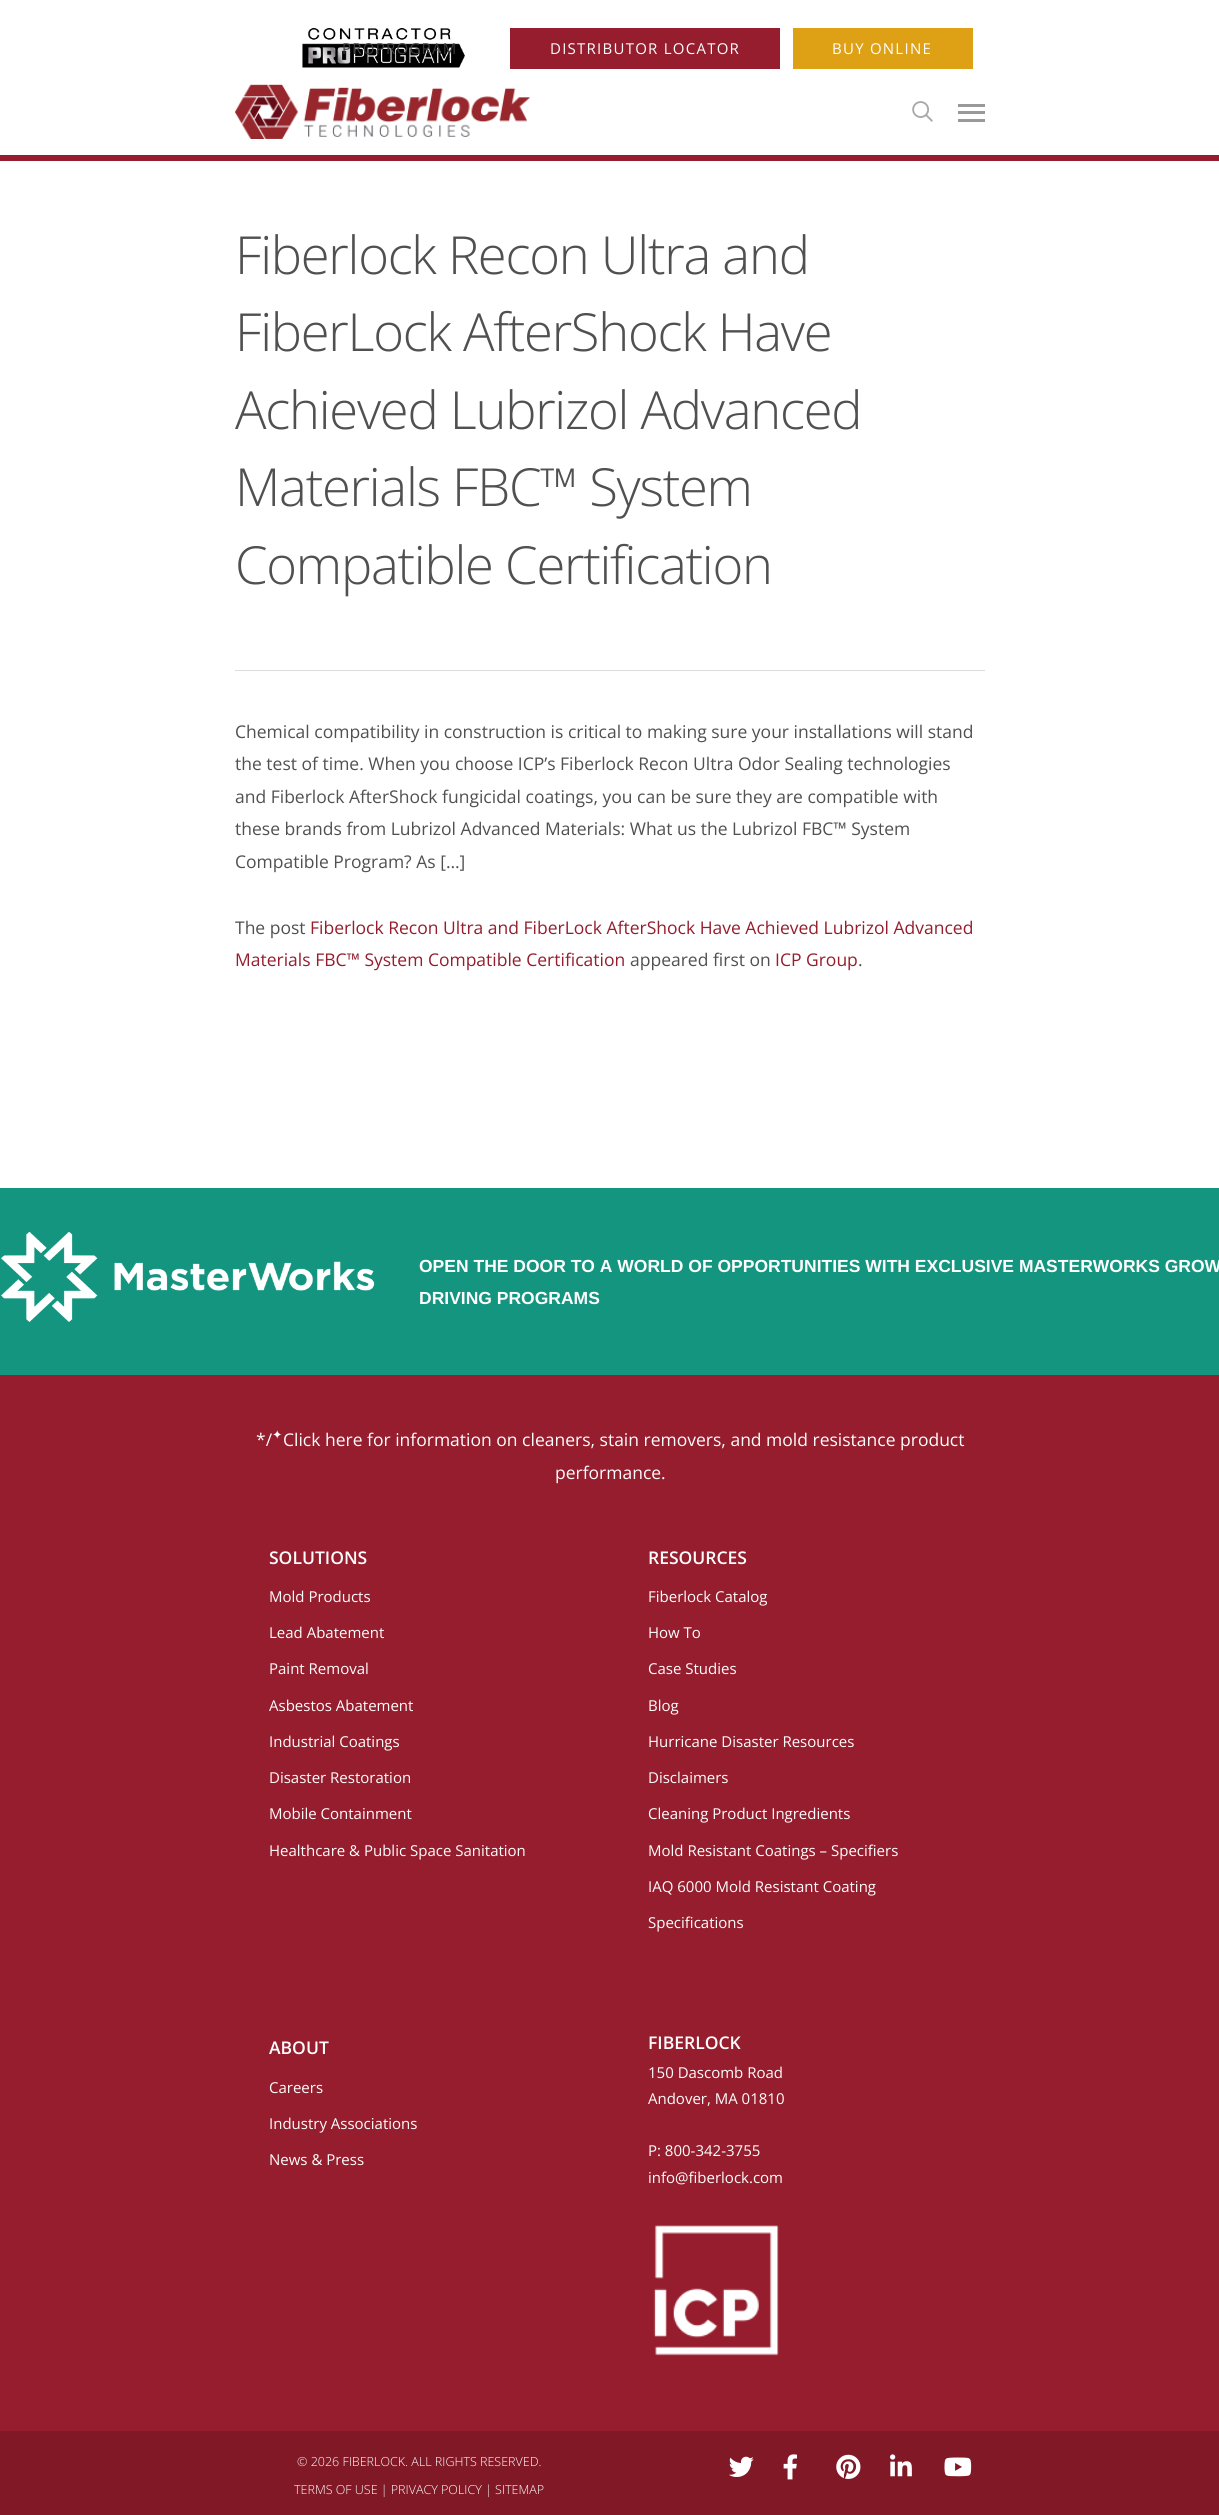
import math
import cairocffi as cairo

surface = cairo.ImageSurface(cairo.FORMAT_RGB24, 1219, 2515)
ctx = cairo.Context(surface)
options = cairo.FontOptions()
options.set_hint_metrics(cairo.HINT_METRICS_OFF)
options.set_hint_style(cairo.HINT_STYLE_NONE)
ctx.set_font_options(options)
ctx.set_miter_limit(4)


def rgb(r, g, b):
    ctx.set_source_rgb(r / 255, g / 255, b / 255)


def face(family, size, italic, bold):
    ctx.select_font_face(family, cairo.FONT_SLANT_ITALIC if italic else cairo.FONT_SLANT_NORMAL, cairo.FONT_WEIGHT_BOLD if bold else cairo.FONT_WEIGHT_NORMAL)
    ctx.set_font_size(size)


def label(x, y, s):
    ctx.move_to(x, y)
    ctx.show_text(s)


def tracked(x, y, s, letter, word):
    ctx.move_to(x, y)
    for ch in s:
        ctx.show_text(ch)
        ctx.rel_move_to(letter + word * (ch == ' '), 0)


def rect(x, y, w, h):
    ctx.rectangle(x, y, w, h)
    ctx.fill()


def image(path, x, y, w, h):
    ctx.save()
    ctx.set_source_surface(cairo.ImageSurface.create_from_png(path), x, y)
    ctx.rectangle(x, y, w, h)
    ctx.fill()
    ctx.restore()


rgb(255, 255, 255)
ctx.paint()
rgb(149, 29, 45)
rect(0, 155, 1219, 6)
image('image0.png', 302, 28, 163, 40)
face('Open Sans', 15, 0, 0)
rgb(60, 60, 60)
tracked(342, 54, 'PROPROGRAM', 1.25, 0)
rgb(149, 29, 45)
rect(510, 28, 270, 41)
rgb(253, 253, 253)
tracked(550, 54, 'DISTRIBUTOR LOCATOR', 1.25, 0)
rgb(222, 160, 20)
rect(793, 28, 180, 41)
rgb(253, 253, 253)
tracked(832, 54, 'BUY ONLINE', 1.25, 0)
image('image1.png', 235, 84, 295, 55)
image('image2.png', 912, 101, 21, 21)
rgb(153, 153, 153)
rect(958, 104, 27, 3)
rect(958, 119, 27, 3)
rect(958, 111, 27, 3)
rgb(221, 221, 221)
rect(235, 670, 750, 1)
face('Open Sans Light', 52.5, 0, 0)
rgb(80, 80, 80)
tracked(235, 274, 'Fiberlock Recon Ultra and', -1.25, 0)
tracked(235, 351, 'FiberLock AfterShock Have', -1.25, 0)
tracked(235, 429, 'Achieved Lubrizol Advanced', -1.25, 0)
tracked(235, 506, 'Materials FBC™ System', -1.25, 0)
tracked(235, 584, 'Compatible Certification', -1.25, 0)
face('Open Sans', 17.5, 0, 0)
label(235, 738, 'Chemical compatibility in construction is critical to making sure your installations will stand')
label(235, 770, 'the test of time. When you choose ICP’s Fiberlock Recon Ultra Odor Sealing technologies')
label(235, 803, 'and Fiberlock AfterShock fungicidal coatings, you can be sure they are compatible with')
label(235, 835, 'these brands from Lubrizol Advanced Materials: What us the Lubrizol FBC™ System')
label(235, 868, 'Compatible Program? As […]')
label(235, 934, 'The post')
rgb(149, 29, 45)
label(310, 934, 'Fiberlock Recon Ultra and FiberLock AfterShock Have Achieved Lubrizol Advanced')
label(235, 966, 'Materials FBC™ System Compatible Certification')
rgb(80, 80, 80)
label(630, 966, 'appeared first on')
rgb(149, 29, 45)
label(775, 966, 'ICP Group')
rgb(80, 80, 80)
label(858, 966, '.')
rgb(20, 149, 127)
rect(0, 1188, 1219, 187)
image('image3.png', 1, 1231, 374, 91)
face('Liberation Sans', 17.5, 0, 1)
rgb(253, 253, 253)
label(419, 1272, 'OPEN THE DOOR TO A WORLD OF OPPORTUNITIES WITH EXCLUSIVE MASTERWORKS GROW')
label(419, 1304, 'DRIVING PROGRAMS')
rgb(149, 29, 45)
rect(0, 1375, 1219, 1056)
face('Open Sans', 17.5, 0, 0)
rgb(253, 253, 253)
label(256, 1446, '*/')
face('DejaVu Sans', 12.5, 0, 0)
label(272, 1439, '✦')
face('Open Sans', 17.5, 0, 0)
label(283, 1446, 'Click here for information on cleaners, stain removers, and mold resistance product')
label(555, 1479, 'performance.')
face('Open Sans SemiBold', 17.5, 0, 0)
label(269, 1564, 'SOLUTIONS')
face('Open Sans', 15, 0, 0)
label(269, 1602, 'Mold Products')
label(269, 1638, 'Lead Abatement')
label(269, 1674, 'Paint Removal')
label(269, 1711, 'Asbestos Abatement')
label(269, 1747, 'Industrial Coatings')
label(269, 1783, 'Disaster Restoration')
label(269, 1819, 'Mobile Containment')
label(269, 1856, 'Healthcare & Public Space Sanitation')
face('Open Sans SemiBold', 17.5, 0, 0)
label(648, 1564, 'RESOURCES')
face('Open Sans', 15, 0, 0)
label(648, 1602, 'Fiberlock Catalog')
label(648, 1638, 'How To')
label(648, 1674, 'Case Studies')
label(648, 1711, 'Blog')
label(648, 1747, 'Hurricane Disaster Resources')
label(648, 1783, 'Disclaimers')
label(648, 1819, 'Cleaning Product Ingredients')
label(648, 1856, 'Mold Resistant Coatings – Specifiers')
label(648, 1892, 'IAQ 6000 Mold Resistant Coating')
label(648, 1928, 'Specifications')
face('Open Sans SemiBold', 17.5, 0, 0)
label(269, 2054, 'ABOUT')
face('Open Sans', 15, 0, 0)
label(269, 2093, 'Careers')
label(269, 2129, 'Industry Associations')
label(269, 2165, 'News & Press')
face('Open Sans SemiBold', 17.5, 0, 0)
label(648, 2049, 'FIBERLOCK')
face('Open Sans', 15, 0, 0)
label(648, 2078, '150 Dascomb Road')
label(648, 2104, 'Andover, MA 01810')
label(648, 2156, 'P: 800-342-3755')
label(648, 2183, 'info@fiberlock.com')
image('image4.png', 653, 2225, 126, 131)
rgb(128, 24, 38)
rect(0, 2431, 1219, 84)
face('Open Sans Light', 12.5, 0, 0)
rgb(253, 253, 253)
label(297, 2466, '© 2026 FIBERLOCK. ALL RIGHTS RESERVED.')
label(294, 2494, 'TERMS OF USE | PRIVACY POLICY | SITEMAP')
image('image5.png', 729, 2456, 25, 21)
image('image6.png', 783, 2454, 14, 26)
image('image7.png', 836, 2454, 25, 25)
image('image8.png', 890, 2454, 22, 23)
image('image9.png', 944, 2457, 28, 20)
surface.write_to_png('render.png')
